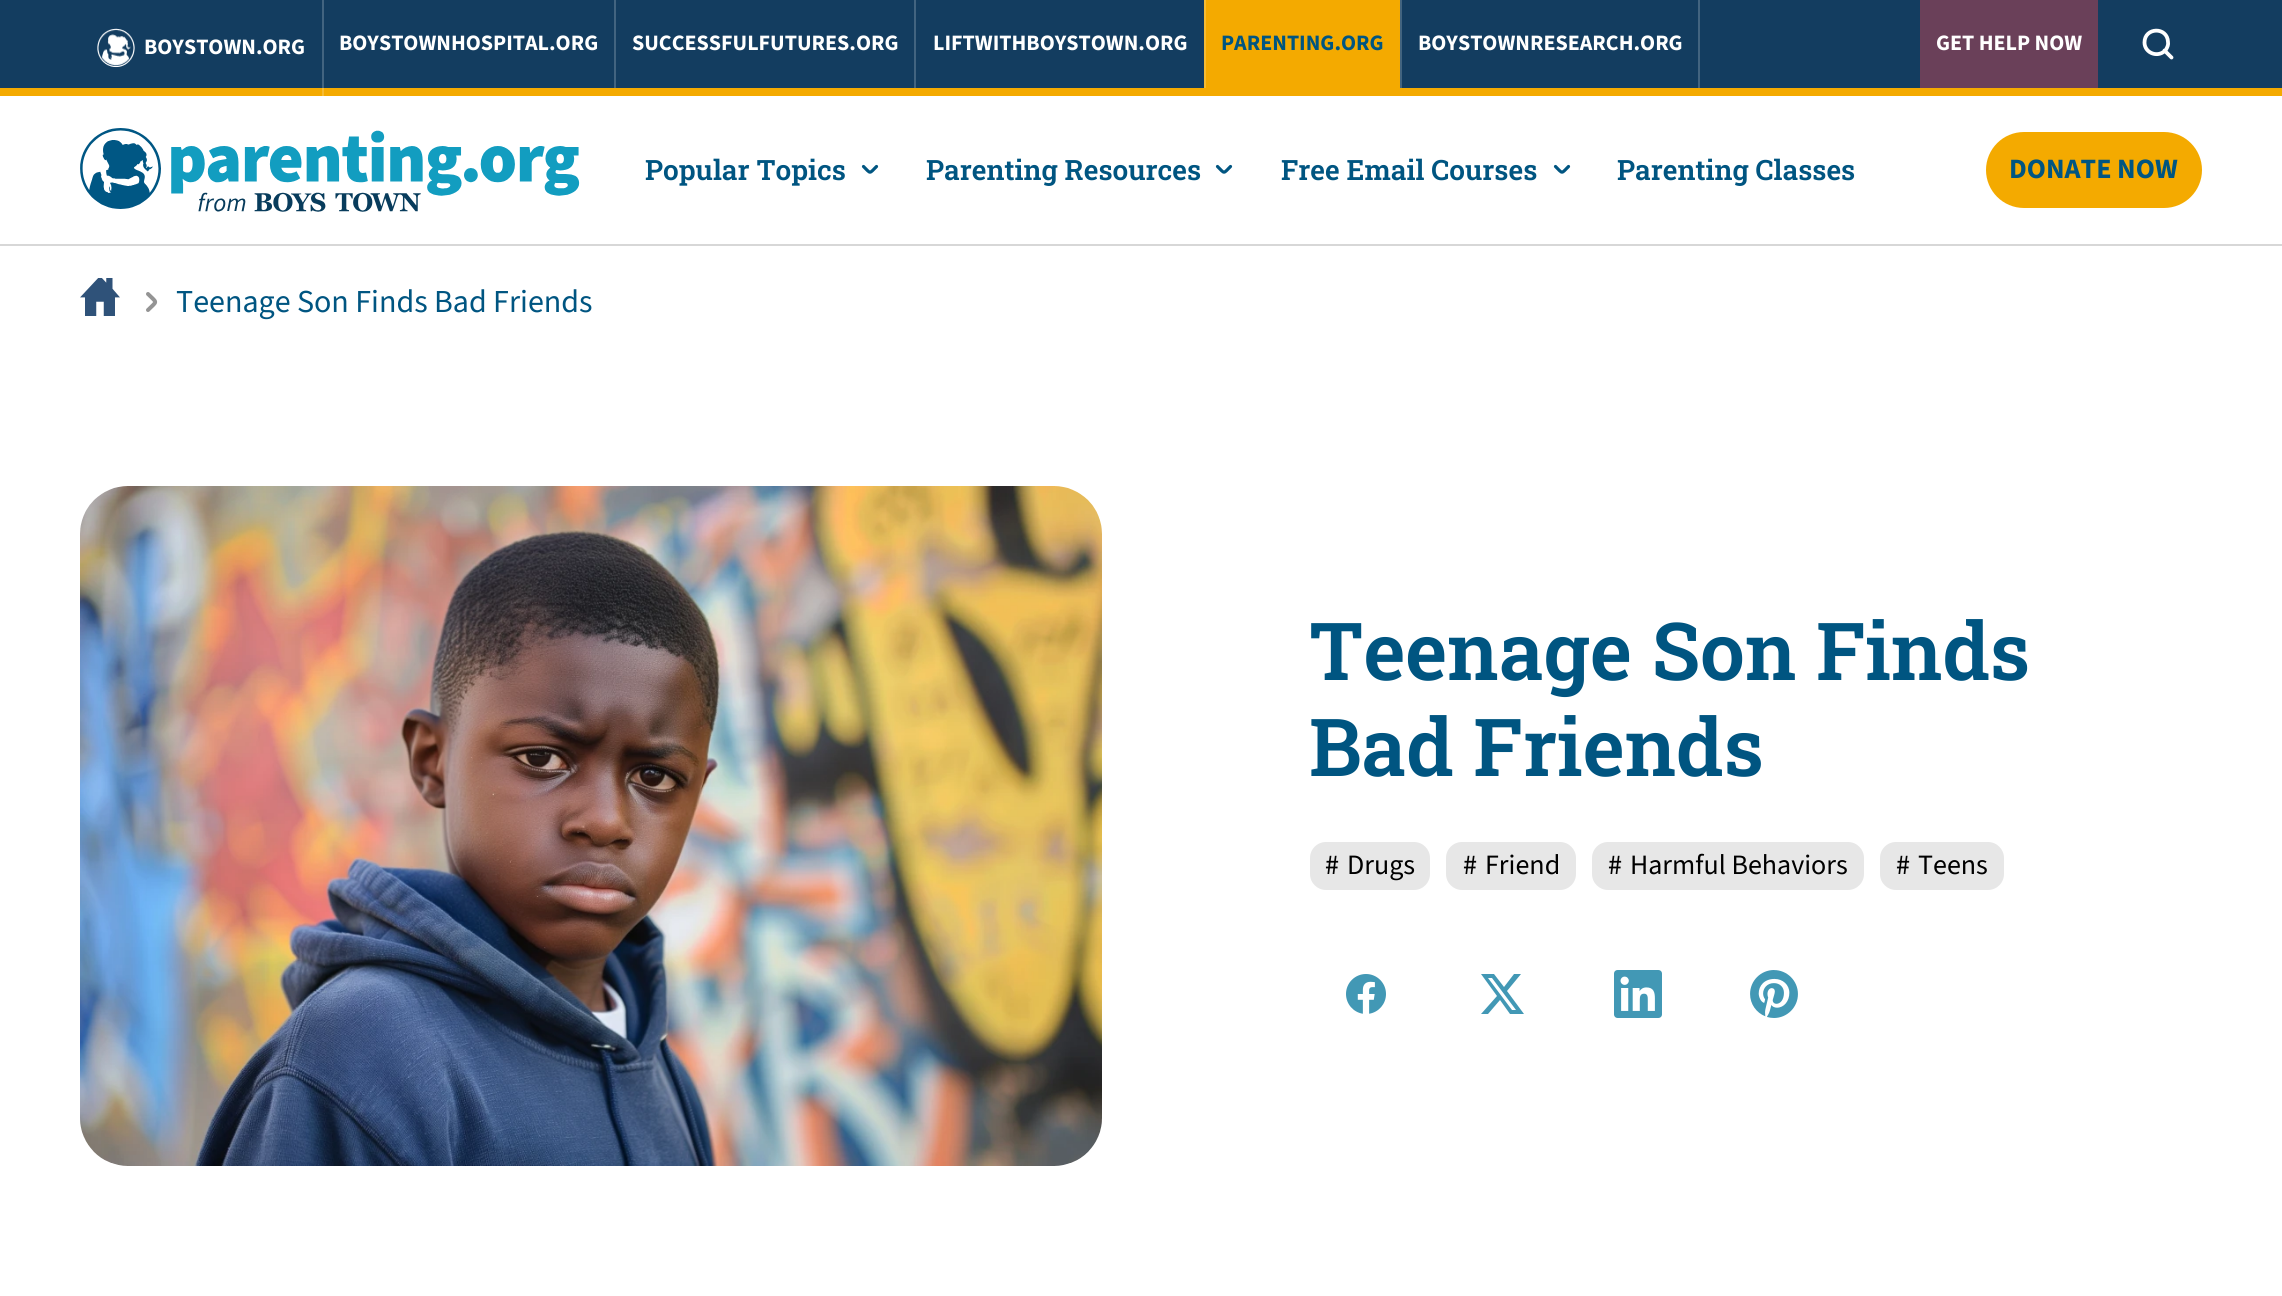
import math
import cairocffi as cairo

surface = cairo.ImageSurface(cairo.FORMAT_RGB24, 2282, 1296)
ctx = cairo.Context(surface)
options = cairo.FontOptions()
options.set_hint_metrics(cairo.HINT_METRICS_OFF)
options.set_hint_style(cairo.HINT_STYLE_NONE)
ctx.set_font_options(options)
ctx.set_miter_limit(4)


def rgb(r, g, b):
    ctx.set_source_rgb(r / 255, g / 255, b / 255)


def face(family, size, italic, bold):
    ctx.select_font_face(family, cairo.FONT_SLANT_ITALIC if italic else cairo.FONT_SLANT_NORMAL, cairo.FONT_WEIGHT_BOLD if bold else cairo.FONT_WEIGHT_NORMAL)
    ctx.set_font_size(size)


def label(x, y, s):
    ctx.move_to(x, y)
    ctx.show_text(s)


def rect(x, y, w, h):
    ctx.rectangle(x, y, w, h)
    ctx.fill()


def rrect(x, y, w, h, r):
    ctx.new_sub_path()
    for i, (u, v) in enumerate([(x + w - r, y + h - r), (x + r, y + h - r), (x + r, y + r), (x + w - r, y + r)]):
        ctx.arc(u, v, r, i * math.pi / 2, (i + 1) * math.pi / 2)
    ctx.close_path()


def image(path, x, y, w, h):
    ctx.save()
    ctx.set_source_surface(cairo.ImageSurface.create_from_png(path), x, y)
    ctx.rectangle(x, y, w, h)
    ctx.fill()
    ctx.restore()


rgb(255, 255, 255)
ctx.paint()
rgb(19, 61, 96)
rect(0, 0, 2282, 88)
rgb(66, 100, 128)
rect(322, 0, 2, 88)
rgb(244, 170, 0)
rect(0, 88, 2282, 8)
rgb(246, 187, 51)
rect(322, 88, 2, 8)
image('image0.png', 97, 28, 38, 40)
face('Source Sans 3', 22, 0, 1)
rgb(255, 255, 255)
label(144, 54, 'BOYSTOWN.ORG')
rgb(66, 100, 128)
rect(1698, 0, 2, 88)
rgb(255, 255, 255)
label(339, 50, 'BOYSTOWNHOSPITAL.ORG')
rgb(66, 100, 128)
rect(614, 0, 2, 88)
rgb(255, 255, 255)
label(632, 50, 'SUCCESSFULFUTURES.ORG')
rgb(66, 100, 128)
rect(914, 0, 2, 88)
rgb(255, 255, 255)
label(933, 50, 'LIFTWITHBOYSTOWN.ORG')
rgb(244, 170, 0)
rect(1206, 0, 194, 88)
rgb(246, 187, 51)
rect(1204, 0, 2, 88)
rgb(0, 85, 129)
label(1221, 50, 'PARENTING.ORG')
rgb(66, 100, 128)
rect(1400, 0, 2, 88)
rgb(255, 255, 255)
label(1418, 50, 'BOYSTOWNRESEARCH.ORG')
rgb(106, 64, 89)
rect(1920, 0, 178, 88)
rgb(255, 255, 255)
label(1936, 50, 'GET HELP NOW')
ctx.new_path()
ctx.move_to(2144.5, 42.5)
ctx.curve_to(2144.5, 27, 2167.5, 26.5, 2168, 42)
ctx.curve_to(2168.5, 44.5, 2167.5, 47, 2166, 49.5)
ctx.curve_to(2159, 58.5, 2144.5, 53.5, 2144.5, 42.5)
ctx.close_path()
ctx.move_to(2164.5, 50.5)
ctx.line_to(2171.5, 57.5)
ctx.set_line_width(3.8)
ctx.set_line_cap(cairo.LINE_CAP_ROUND)
ctx.set_line_join(cairo.LINE_JOIN_ROUND)
ctx.stroke()
rgb(215, 215, 215)
rect(0, 244, 2282, 2)
image('image1.png', 80, 128, 500, 84)
face('Roboto Slab SemiBold', 28, 0, 0)
rgb(0, 85, 129)
label(645, 180, 'Popular Topics')
ctx.new_path()
ctx.move_to(863.5, 166.5)
ctx.curve_to(871, 174, 869, 174, 876.5, 166.5)
ctx.set_line_width(3.2)
ctx.stroke()
label(926, 180, 'Parenting Resources')
ctx.new_path()
ctx.move_to(1217.5, 166.5)
ctx.curve_to(1225, 174, 1223, 174, 1230.5, 166.5)
ctx.stroke()
label(1281, 180, 'Free Email Courses')
ctx.new_path()
ctx.move_to(1555.5, 166.5)
ctx.curve_to(1563, 174, 1561, 174, 1568.5, 166.5)
ctx.stroke()
label(1617, 180, 'Parenting Classes')
rgb(244, 170, 0)
rrect(1986, 132, 216, 76, 38)
ctx.fill()
face('Source Sans 3', 28, 0, 1)
rgb(0, 85, 129)
label(2009, 178, 'DONATE NOW')
image('image2.png', 80, 278, 40, 38)
ctx.new_path()
ctx.move_to(148, 310)
ctx.curve_to(157.5, 300.5, 157.5, 303.5, 148, 294)
rgb(148, 148, 148)
ctx.set_line_width(4)
ctx.stroke()
face('Source Sans 3', 32, 0, 0)
rgb(0, 85, 129)
label(176, 312, 'Teenage Son Finds Bad Friends')
image('image3.png', 80, 486, 1022, 680)
face('Roboto Slab SemiBold', 80, 0, 0)
label(1309, 680, 'Teenage Son Finds')
label(1309, 776, 'Bad Friends')
rgb(231, 231, 231)
rrect(1310, 842, 120, 48, 16)
ctx.fill()
face('Source Sans 3', 28, 0, 0)
rgb(0, 0, 0)
label(1325, 874, '#')
label(1347, 874, 'Drugs')
rgb(231, 231, 231)
rrect(1446, 842, 130, 48, 16)
ctx.fill()
rgb(0, 0, 0)
label(1463, 874, '#')
label(1485, 874, 'Friend')
rgb(231, 231, 231)
rrect(1592, 842, 272, 48, 16)
ctx.fill()
rgb(0, 0, 0)
label(1608, 874, '#')
label(1630, 874, 'Harmful Behaviors')
rgb(231, 231, 231)
rrect(1880, 842, 124, 48, 16)
ctx.fill()
rgb(0, 0, 0)
label(1896, 874, '#')
label(1918, 874, 'Teens')
image('image4.png', 1346, 974, 40, 40)
rgb(66, 152, 181)
ctx.new_path()
ctx.move_to(1514, 974)
ctx.line_to(1521, 974)
ctx.line_to(1507, 991)
ctx.line_to(1524, 1014)
ctx.line_to(1510, 1014)
ctx.line_to(1500, 1000)
ctx.line_to(1488, 1014)
ctx.line_to(1481, 1014)
ctx.line_to(1497, 996)
ctx.line_to(1481, 974)
ctx.line_to(1494, 974)
ctx.line_to(1504, 987)
ctx.close_path()
ctx.move_to(1512, 1010)
ctx.line_to(1516, 1010)
ctx.line_to(1492, 978)
ctx.line_to(1488, 978)
ctx.close_path()
ctx.fill()
image('image5.png', 1614, 970, 48, 48)
image('image6.png', 1750, 970, 48, 48)
surface.write_to_png('render.png')
